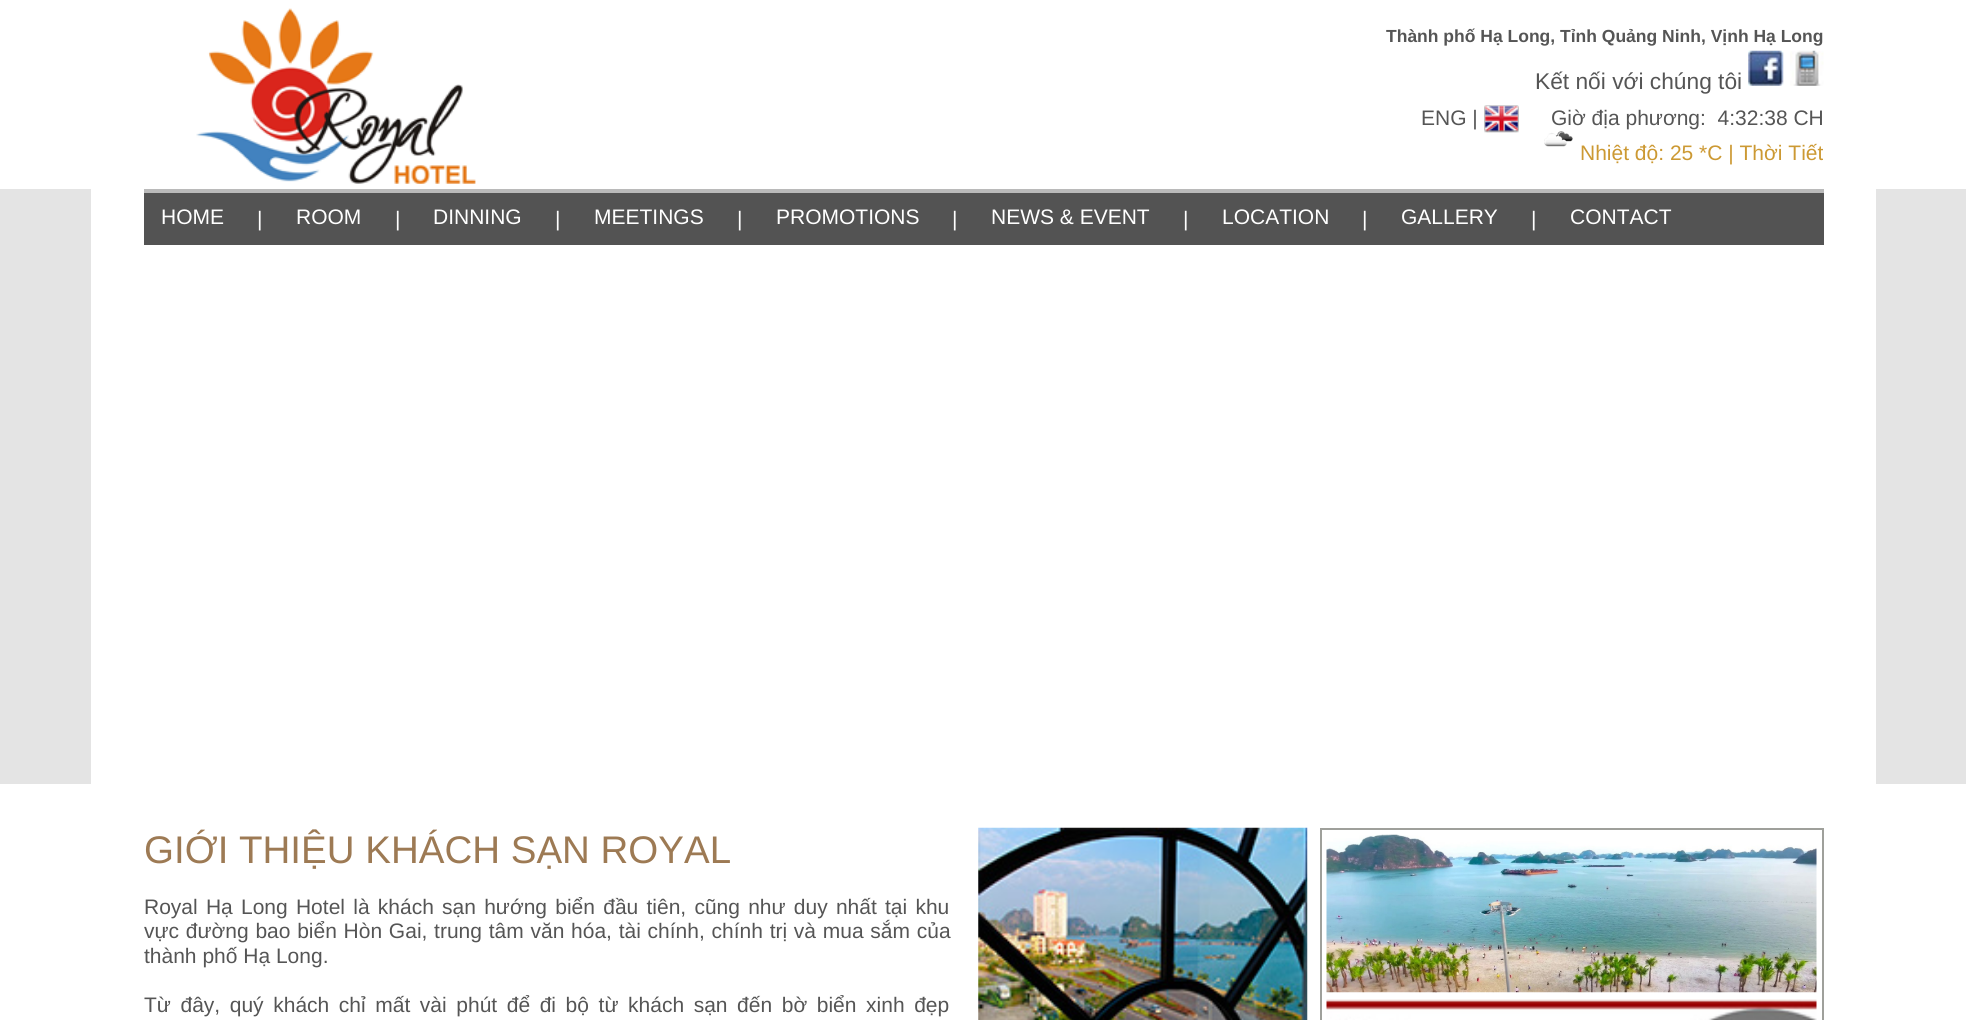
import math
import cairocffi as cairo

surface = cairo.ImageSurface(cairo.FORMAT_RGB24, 1966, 1020)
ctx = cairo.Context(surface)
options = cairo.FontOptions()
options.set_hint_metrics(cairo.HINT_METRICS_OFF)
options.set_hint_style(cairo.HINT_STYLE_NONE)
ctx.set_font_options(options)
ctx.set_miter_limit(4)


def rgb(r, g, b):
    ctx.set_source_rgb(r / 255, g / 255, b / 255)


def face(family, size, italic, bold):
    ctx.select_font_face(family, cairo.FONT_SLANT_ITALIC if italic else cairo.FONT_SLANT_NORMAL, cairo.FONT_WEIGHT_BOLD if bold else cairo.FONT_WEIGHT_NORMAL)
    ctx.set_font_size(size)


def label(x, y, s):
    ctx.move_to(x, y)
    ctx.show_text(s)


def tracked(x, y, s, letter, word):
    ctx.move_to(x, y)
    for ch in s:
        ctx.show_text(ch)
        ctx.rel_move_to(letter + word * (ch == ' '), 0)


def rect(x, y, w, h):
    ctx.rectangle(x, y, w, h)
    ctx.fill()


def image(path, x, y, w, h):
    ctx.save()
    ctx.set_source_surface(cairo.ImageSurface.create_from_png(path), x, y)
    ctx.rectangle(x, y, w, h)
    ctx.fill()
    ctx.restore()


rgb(255, 255, 255)
ctx.paint()
image('image0.png', 196, 8, 280, 176)
face('Liberation Sans', 17.5, 0, 1)
rgb(85, 85, 85)
label(1386, 42, 'Thành phố Hạ Long, Tỉnh Quảng Ninh, Vịnh Hạ Long')
face('Liberation Sans', 22.75, 0, 0)
label(1535, 89, 'Kết nối với chúng tôi')
image('image1.png', 1748, 50, 36, 36)
image('image2.png', 1790, 50, 34, 36)
face('Liberation Sans', 21, 0, 0)
label(1421, 125, 'ENG |')
image('image3.png', 1484, 105, 35, 28)
label(1551, 125, 'Giờ địa phương:  4:32:38 CH')
image('image4.png', 1544, 131, 29, 16)
rgb(204, 153, 51)
label(1580, 160, 'Nhiệt độ: 25 *C | Thời Tiết')
rgb(228, 228, 228)
rect(0, 189, 1966, 595)
rgb(255, 255, 255)
rect(91, 189, 1785, 595)
rgb(83, 83, 83)
rect(144, 193, 1680, 52)
rgb(186, 186, 186)
rect(144, 189, 1680, 4)
rgb(255, 255, 255)
label(161, 224, 'HOME')
label(257, 226, '|')
label(296, 224, 'ROOM')
label(395, 226, '|')
label(433, 224, 'DINNING')
label(555, 226, '|')
label(594, 224, 'MEETINGS')
label(737, 226, '|')
label(776, 224, 'PROMOTIONS')
label(952, 226, '|')
label(991, 224, 'NEWS & EVENT')
label(1183, 226, '|')
label(1222, 224, 'LOCATION')
label(1362, 226, '|')
label(1401, 224, 'GALLERY')
label(1531, 226, '|')
label(1570, 224, 'CONTACT')
face('Liberation Sans', 38.5, 0, 0)
rgb(157, 122, 84)
label(144, 863, 'GIỚI THIỆU KHÁCH SẠN ROYAL')
face('Liberation Sans', 21, 0, 0)
rgb(85, 85, 85)
tracked(144, 914, 'Royal Hạ Long Hotel là khách sạn hướng biển đầu tiên, cũng như duy nhất tại khu', 0, 2.4)
tracked(144, 938, 'vực đường bao biển Hòn Gai, trung tâm văn hóa, tài chính, chính trị và mua sắm của', 0, 0.9)
label(144, 963, 'thành phố Hạ Long.')
tracked(144, 1012, 'Từ đây, quý khách chỉ mất vài phút để đi bộ từ khách sạn đến bờ biển xinh đẹp', 0, 3.75)
image('image5.png', 978, 827, 330, 193)
ctx.rectangle(1321, 829, 502, 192)
rgb(159, 160, 155)
ctx.stroke()
image('image6.png', 1326, 834, 491, 159)
image('image7.png', 1326, 999, 491, 21)
surface.write_to_png('render.png')
